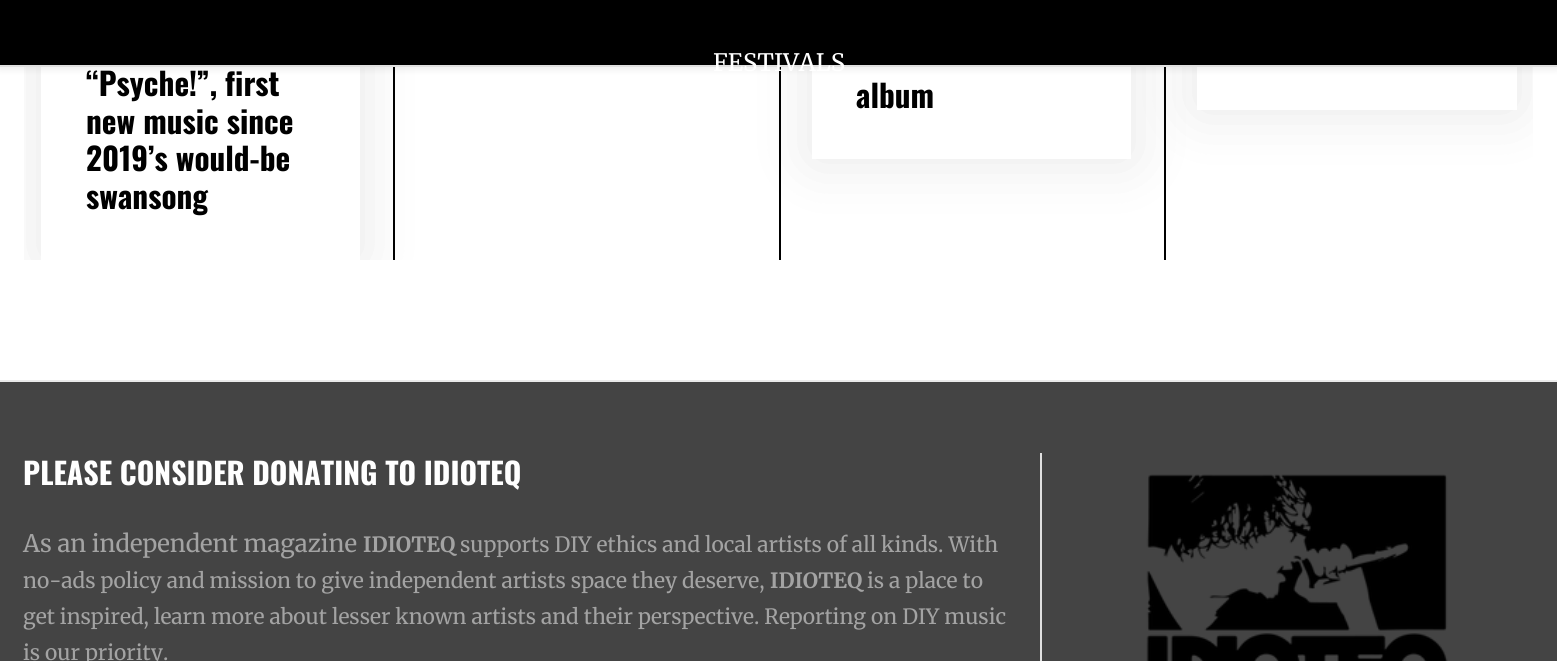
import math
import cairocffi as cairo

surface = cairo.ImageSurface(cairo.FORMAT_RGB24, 1557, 661)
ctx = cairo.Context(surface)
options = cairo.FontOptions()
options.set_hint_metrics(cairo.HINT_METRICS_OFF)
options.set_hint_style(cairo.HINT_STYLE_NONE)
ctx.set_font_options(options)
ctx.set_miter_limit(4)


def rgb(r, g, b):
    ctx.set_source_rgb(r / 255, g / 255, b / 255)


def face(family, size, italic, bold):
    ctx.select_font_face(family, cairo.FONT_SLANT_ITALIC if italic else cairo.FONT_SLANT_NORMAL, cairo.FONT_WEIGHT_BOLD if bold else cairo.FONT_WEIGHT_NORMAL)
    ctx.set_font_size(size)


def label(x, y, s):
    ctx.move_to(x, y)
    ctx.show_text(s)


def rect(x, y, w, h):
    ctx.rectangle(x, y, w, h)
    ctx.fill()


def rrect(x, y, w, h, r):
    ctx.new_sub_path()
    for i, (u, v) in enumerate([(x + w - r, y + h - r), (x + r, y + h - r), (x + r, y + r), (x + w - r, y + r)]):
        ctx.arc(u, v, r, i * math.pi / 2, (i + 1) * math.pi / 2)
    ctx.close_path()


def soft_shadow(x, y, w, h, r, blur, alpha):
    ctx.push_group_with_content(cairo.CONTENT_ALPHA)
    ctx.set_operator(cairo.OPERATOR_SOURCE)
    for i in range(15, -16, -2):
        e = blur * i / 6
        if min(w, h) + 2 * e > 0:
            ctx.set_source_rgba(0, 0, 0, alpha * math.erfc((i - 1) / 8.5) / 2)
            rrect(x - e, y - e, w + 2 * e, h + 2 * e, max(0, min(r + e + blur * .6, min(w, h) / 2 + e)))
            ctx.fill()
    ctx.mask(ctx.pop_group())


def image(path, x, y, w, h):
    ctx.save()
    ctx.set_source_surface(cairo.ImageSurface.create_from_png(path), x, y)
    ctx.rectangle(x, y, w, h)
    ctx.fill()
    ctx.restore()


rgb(255, 255, 255)
ctx.paint()
rgb(0, 0, 0)
rect(393, 67, 2, 193)
ctx.save()
ctx.rectangle(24, 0, 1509, 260)
ctx.clip()
rgb(0, 0, 0)
soft_shadow(41, -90, 319, 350, 0, 30, 0.1)
ctx.restore()
rgb(255, 255, 255)
rect(41, 67, 319, 193)
rgb(0, 0, 0)
rect(779, 67, 2, 193)
rect(1164, 67, 2, 193)
ctx.save()
ctx.rectangle(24, 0, 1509, 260)
ctx.clip()
rgb(0, 0, 0)
soft_shadow(1197, -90, 320, 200, 0, 30, 0.1)
ctx.restore()
ctx.save()
ctx.set_fill_rule(cairo.FILL_RULE_EVEN_ODD)
ctx.new_path()
ctx.move_to(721, 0)
ctx.line_to(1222, 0)
ctx.line_to(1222, 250)
ctx.line_to(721, 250)
ctx.close_path()
ctx.move_to(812, -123)
ctx.line_to(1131, -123)
ctx.line_to(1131, 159)
ctx.line_to(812, 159)
ctx.close_path()
ctx.clip()
rgb(0, 0, 0)
soft_shadow(812, -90, 319, 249, 0, 30, 0.1)
ctx.restore()
rgb(255, 255, 255)
rect(1197, 67, 320, 43)
rgb(0, 0, 0)
soft_shadow(0, 3, 1557, 66, 0, 4, 0.08)
rgb(224, 224, 224)
rect(0, 65, 1557, 2)
rgb(0, 0, 0)
rect(0, 0, 1557, 65)
face('Merriweather', 24, 0, 0)
rgb(255, 255, 255)
label(713, 71, 'FESTIVALS')
face('Oswald', 31.25, 0, 1)
rgb(0, 0, 0)
label(86, 96, '“Psyche!”, first')
label(86, 134, 'new music since')
label(86, 171, '2019’s would-be')
label(86, 209, 'swansong')
label(856, 108, 'album')
rgb(68, 68, 68)
rect(0, 382, 1557, 279)
rgb(234, 234, 234)
rect(0, 380, 1557, 2)
face('Oswald', 30, 0, 1)
rgb(255, 255, 255)
label(23, 485, 'PLEASE CONSIDER DONATING TO IDIOTEQ')
face('Merriweather', 24, 0, 0)
rgb(163, 163, 163)
label(23, 552, 'As an independent magazine')
face('Merriweather', 21, 0, 1)
label(363, 552, 'IDIOTEQ')
face('Merriweather', 21, 0, 0)
label(460, 552, 'supports DIY ethics and local artists of all kinds. With')
label(23, 588, 'no-ads policy and mission to give independent artists space they deserve,')
face('Merriweather', 21, 0, 1)
label(770, 588, 'IDIOTEQ')
face('Merriweather', 21, 0, 0)
label(867, 588, 'is a place to')
label(23, 624, 'get inspired, learn more about lesser known artists and their perspective. Reporting on DIY music')
label(23, 660, 'is our priority.')
rgb(224, 224, 224)
rect(1040, 453, 2, 208)
image('image0.png', 1146, 474, 302, 187)
surface.write_to_png('render.png')
